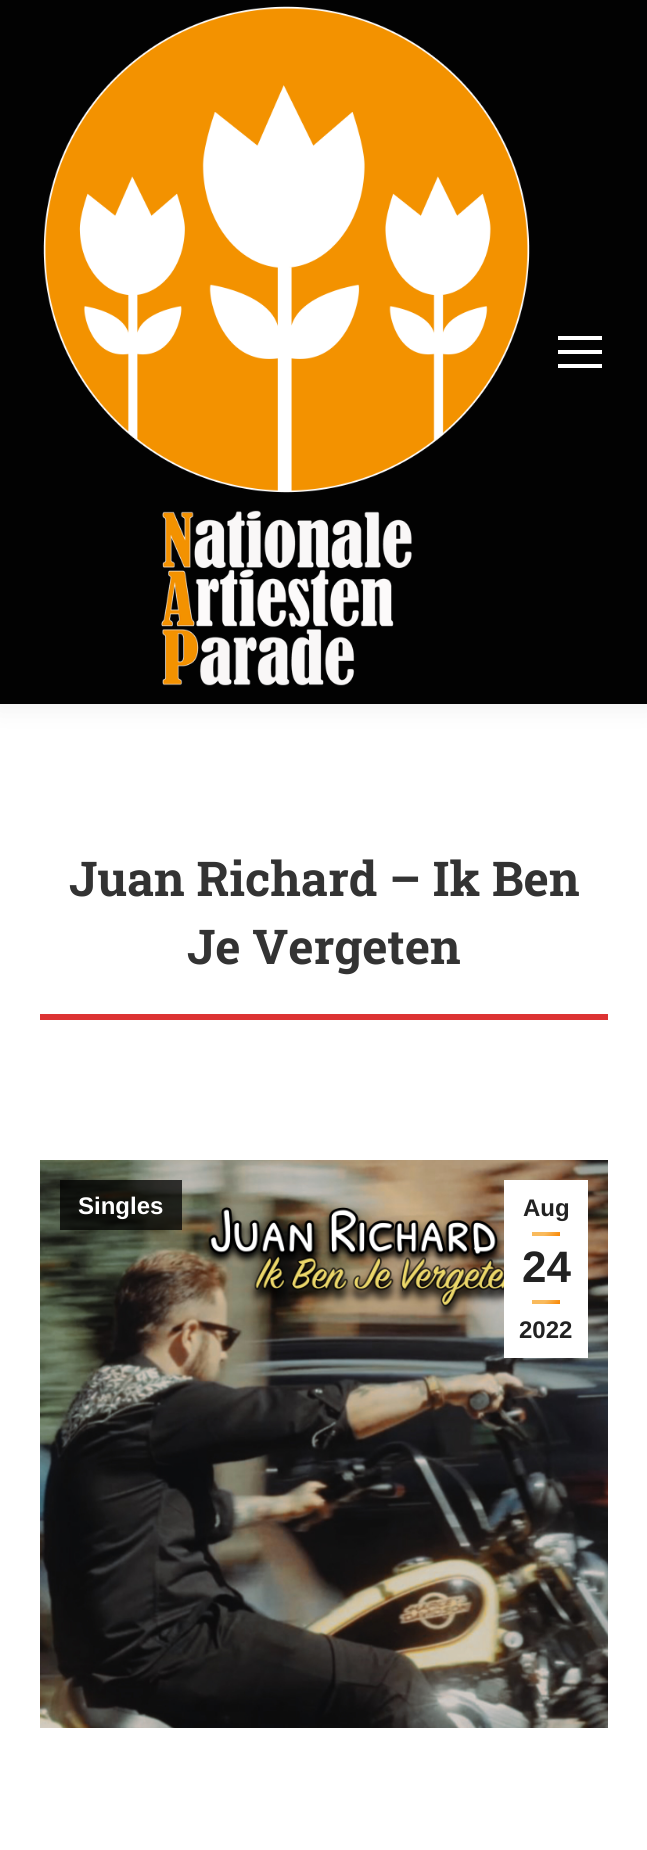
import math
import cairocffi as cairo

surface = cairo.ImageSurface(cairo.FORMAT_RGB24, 647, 1850)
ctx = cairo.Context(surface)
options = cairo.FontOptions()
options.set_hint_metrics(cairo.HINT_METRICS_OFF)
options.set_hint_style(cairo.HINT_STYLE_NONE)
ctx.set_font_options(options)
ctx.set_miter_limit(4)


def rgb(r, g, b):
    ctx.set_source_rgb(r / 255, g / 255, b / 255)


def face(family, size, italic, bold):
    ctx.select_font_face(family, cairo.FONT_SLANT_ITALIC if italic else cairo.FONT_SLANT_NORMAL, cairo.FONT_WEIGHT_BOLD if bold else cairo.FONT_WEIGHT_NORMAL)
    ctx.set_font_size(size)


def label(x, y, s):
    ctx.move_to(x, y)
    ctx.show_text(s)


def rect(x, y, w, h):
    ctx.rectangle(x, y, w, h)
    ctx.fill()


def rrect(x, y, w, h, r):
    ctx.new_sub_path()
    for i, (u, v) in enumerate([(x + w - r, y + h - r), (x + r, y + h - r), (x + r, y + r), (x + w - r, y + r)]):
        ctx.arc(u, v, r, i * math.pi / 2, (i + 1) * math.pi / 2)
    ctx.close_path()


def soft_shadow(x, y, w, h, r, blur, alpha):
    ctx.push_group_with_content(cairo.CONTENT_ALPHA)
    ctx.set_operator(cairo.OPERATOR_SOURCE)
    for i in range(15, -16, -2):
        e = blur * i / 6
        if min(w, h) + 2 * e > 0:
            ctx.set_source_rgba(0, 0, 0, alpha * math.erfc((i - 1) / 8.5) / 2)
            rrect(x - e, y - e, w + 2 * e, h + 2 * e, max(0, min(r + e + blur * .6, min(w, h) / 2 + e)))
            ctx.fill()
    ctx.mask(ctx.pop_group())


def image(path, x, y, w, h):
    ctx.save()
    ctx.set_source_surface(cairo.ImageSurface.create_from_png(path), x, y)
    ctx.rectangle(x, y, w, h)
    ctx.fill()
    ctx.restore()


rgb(255, 255, 255)
ctx.paint()
rgb(0, 0, 0)
soft_shadow(-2, -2, 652, 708, 0, 15, 0.07)
rgb(2, 2, 2)
rect(0, 0, 647, 704)
image('image0.png', 43, 6, 487, 680)
rgb(255, 255, 255)
rect(558, 336, 44, 4)
rect(558, 350, 44, 4)
rect(558, 364, 44, 4)
face('Roboto Slab', 48, 0, 1)
rgb(51, 51, 51)
label(69, 896, 'Juan Richard – Ik Ben')
label(187, 964, 'Je Vergeten')
rgb(221, 51, 51)
rect(40, 1014, 568, 6)
image('image1.png', 40, 1160, 568, 568)
ctx.set_source_rgba(0, 0, 0, 0.75)
rect(60, 1180, 122, 50)
face('Liberation Sans', 24, 0, 1)
rgb(255, 255, 255)
label(78, 1214, 'Singles')
rect(504, 1180, 84, 178)
rgb(34, 34, 34)
label(523, 1216, 'Aug')
gradient = cairo.LinearGradient(538, 1226, 554, 1242)
gradient.add_color_stop_rgba(0.46, 0.976, 0.729, 0.361, 1)
gradient.add_color_stop_rgba(1, 0.976, 0.522, 0, 1)
ctx.set_source(gradient)
rect(532, 1232, 28, 4)
face('Liberation Sans', 44, 0, 1)
rgb(34, 34, 34)
label(522, 1282, '24')
gradient = cairo.LinearGradient(538, 1294, 554, 1310)
gradient.add_color_stop_rgba(0.46, 0.976, 0.729, 0.361, 1)
gradient.add_color_stop_rgba(1, 0.976, 0.522, 0, 1)
ctx.set_source(gradient)
rect(532, 1300, 28, 4)
face('Liberation Sans', 24, 0, 1)
rgb(34, 34, 34)
label(519, 1338, '2022')
surface.write_to_png('render.png')
